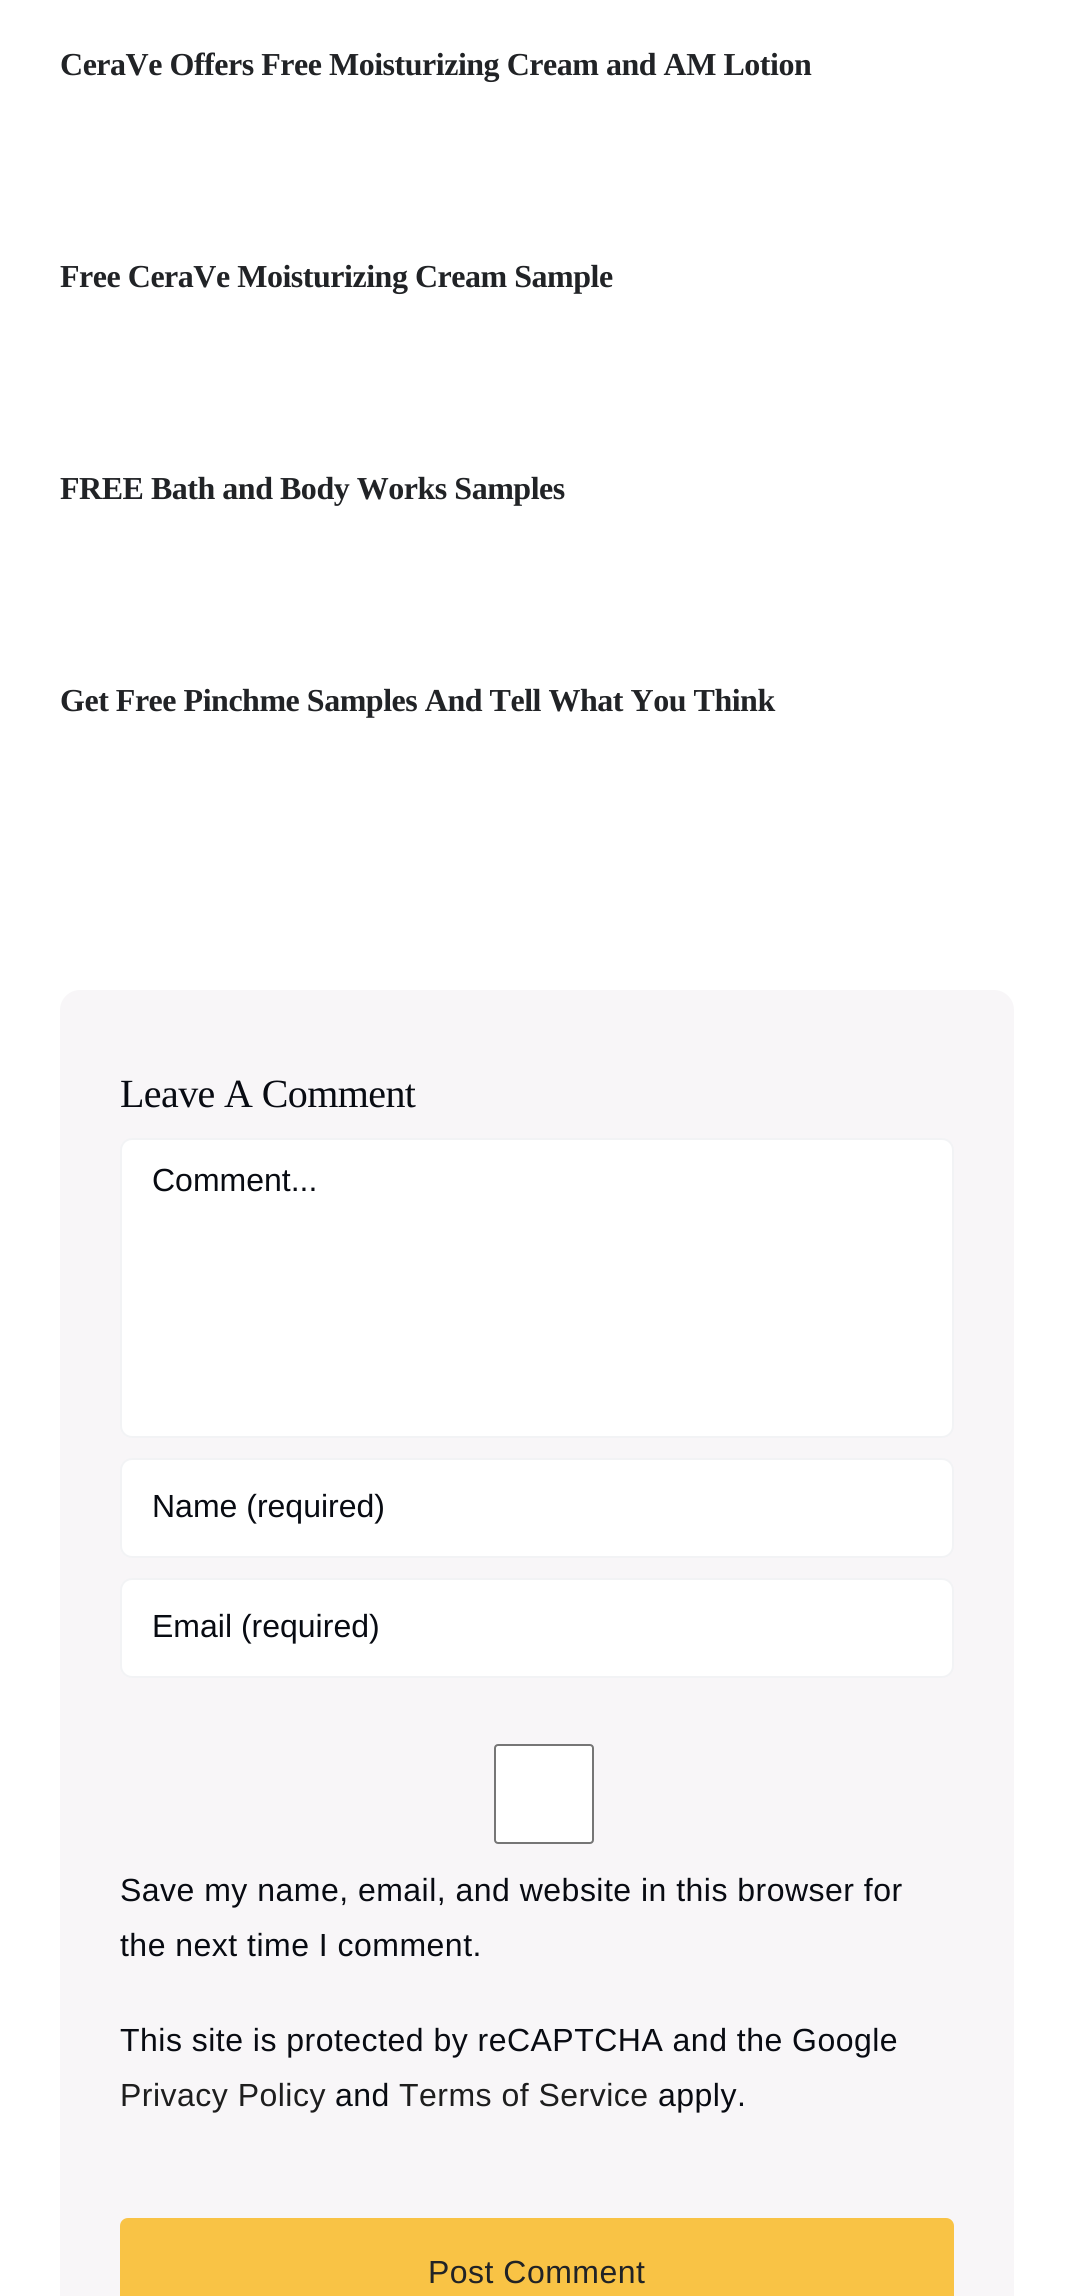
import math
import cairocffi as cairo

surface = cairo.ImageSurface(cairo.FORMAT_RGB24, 1074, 2296)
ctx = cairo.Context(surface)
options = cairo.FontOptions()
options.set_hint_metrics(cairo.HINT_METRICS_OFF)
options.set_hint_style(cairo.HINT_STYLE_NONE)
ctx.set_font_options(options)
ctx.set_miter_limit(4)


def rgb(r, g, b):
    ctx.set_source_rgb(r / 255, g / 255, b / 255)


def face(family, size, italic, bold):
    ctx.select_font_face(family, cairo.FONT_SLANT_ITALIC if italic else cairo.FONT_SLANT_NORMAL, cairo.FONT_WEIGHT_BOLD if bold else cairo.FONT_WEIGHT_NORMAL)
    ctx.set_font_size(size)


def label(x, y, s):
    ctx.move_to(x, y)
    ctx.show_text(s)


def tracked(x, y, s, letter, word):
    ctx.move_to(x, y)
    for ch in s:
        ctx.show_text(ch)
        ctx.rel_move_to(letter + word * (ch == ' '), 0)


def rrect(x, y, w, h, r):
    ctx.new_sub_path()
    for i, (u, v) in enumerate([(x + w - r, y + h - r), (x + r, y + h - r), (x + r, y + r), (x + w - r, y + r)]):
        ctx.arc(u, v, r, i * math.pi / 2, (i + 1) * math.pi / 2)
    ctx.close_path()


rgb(255, 255, 255)
ctx.paint()
face('Liberation Serif', 32, 0, 1)
rgb(33, 35, 38)
tracked(60, 75, 'CeraVe Offers Free Moisturizing Cream and AM Lotion', -0.48, 0)
tracked(60, 287, 'Free CeraVe Moisturizing Cream Sample', -0.48, 0)
tracked(60, 499, 'FREE Bath and Body Works Samples', -0.48, 0)
tracked(60, 711, 'Get Free Pinchme Samples And Tell What You Think', -0.48, 0)
rgb(248, 246, 248)
rrect(60, 990, 954, 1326, 20)
ctx.fill()
face('Liberation Serif', 40, 0, 0)
rgb(8, 11, 18)
tracked(120, 1107, 'Leave A Comment', -0.6, 0)
rgb(255, 255, 255)
rrect(121, 1139, 832, 298, 11)
ctx.fill_preserve()
rgb(242, 243, 245)
ctx.stroke()
face('Liberation Sans', 32, 0, 0)
rgb(8, 11, 18)
label(152, 1191, 'Comment...')
rgb(255, 255, 255)
rrect(121, 1459, 832, 98, 11)
ctx.fill_preserve()
rgb(242, 243, 245)
ctx.stroke()
rgb(8, 11, 18)
label(152, 1517, 'Name (required)')
rgb(255, 255, 255)
rrect(121, 1579, 832, 98, 11)
ctx.fill_preserve()
rgb(242, 243, 245)
ctx.stroke()
rgb(8, 11, 18)
label(152, 1637, 'Email (required)')
rgb(255, 255, 255)
rrect(495, 1745, 98, 98, 3)
ctx.fill_preserve()
rgb(118, 118, 118)
ctx.stroke()
rgb(8, 11, 18)
tracked(120, 1901, 'Save my name, email, and website in this browser for', 0.48, 0)
tracked(120, 1956, 'the next time I comment.', 0.48, 0)
tracked(120, 2051, 'This site is protected by reCAPTCHA and the Google', 0.48, 0)
rgb(30, 30, 30)
tracked(120, 2106, 'Privacy Policy', 0.48, 0)
rgb(8, 11, 18)
tracked(335, 2106, 'and', 0.48, 0)
rgb(30, 30, 30)
tracked(399, 2106, 'Terms of Service', 0.48, 0)
rgb(8, 11, 18)
tracked(658, 2106, 'apply.', 0.48, 0)
rgb(249, 195, 69)
rrect(120, 2218, 834, 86, 8)
ctx.fill()
rgb(33, 35, 38)
tracked(428, 2283, 'Post Comment', 0.48, 0)
surface.write_to_png('render.png')
